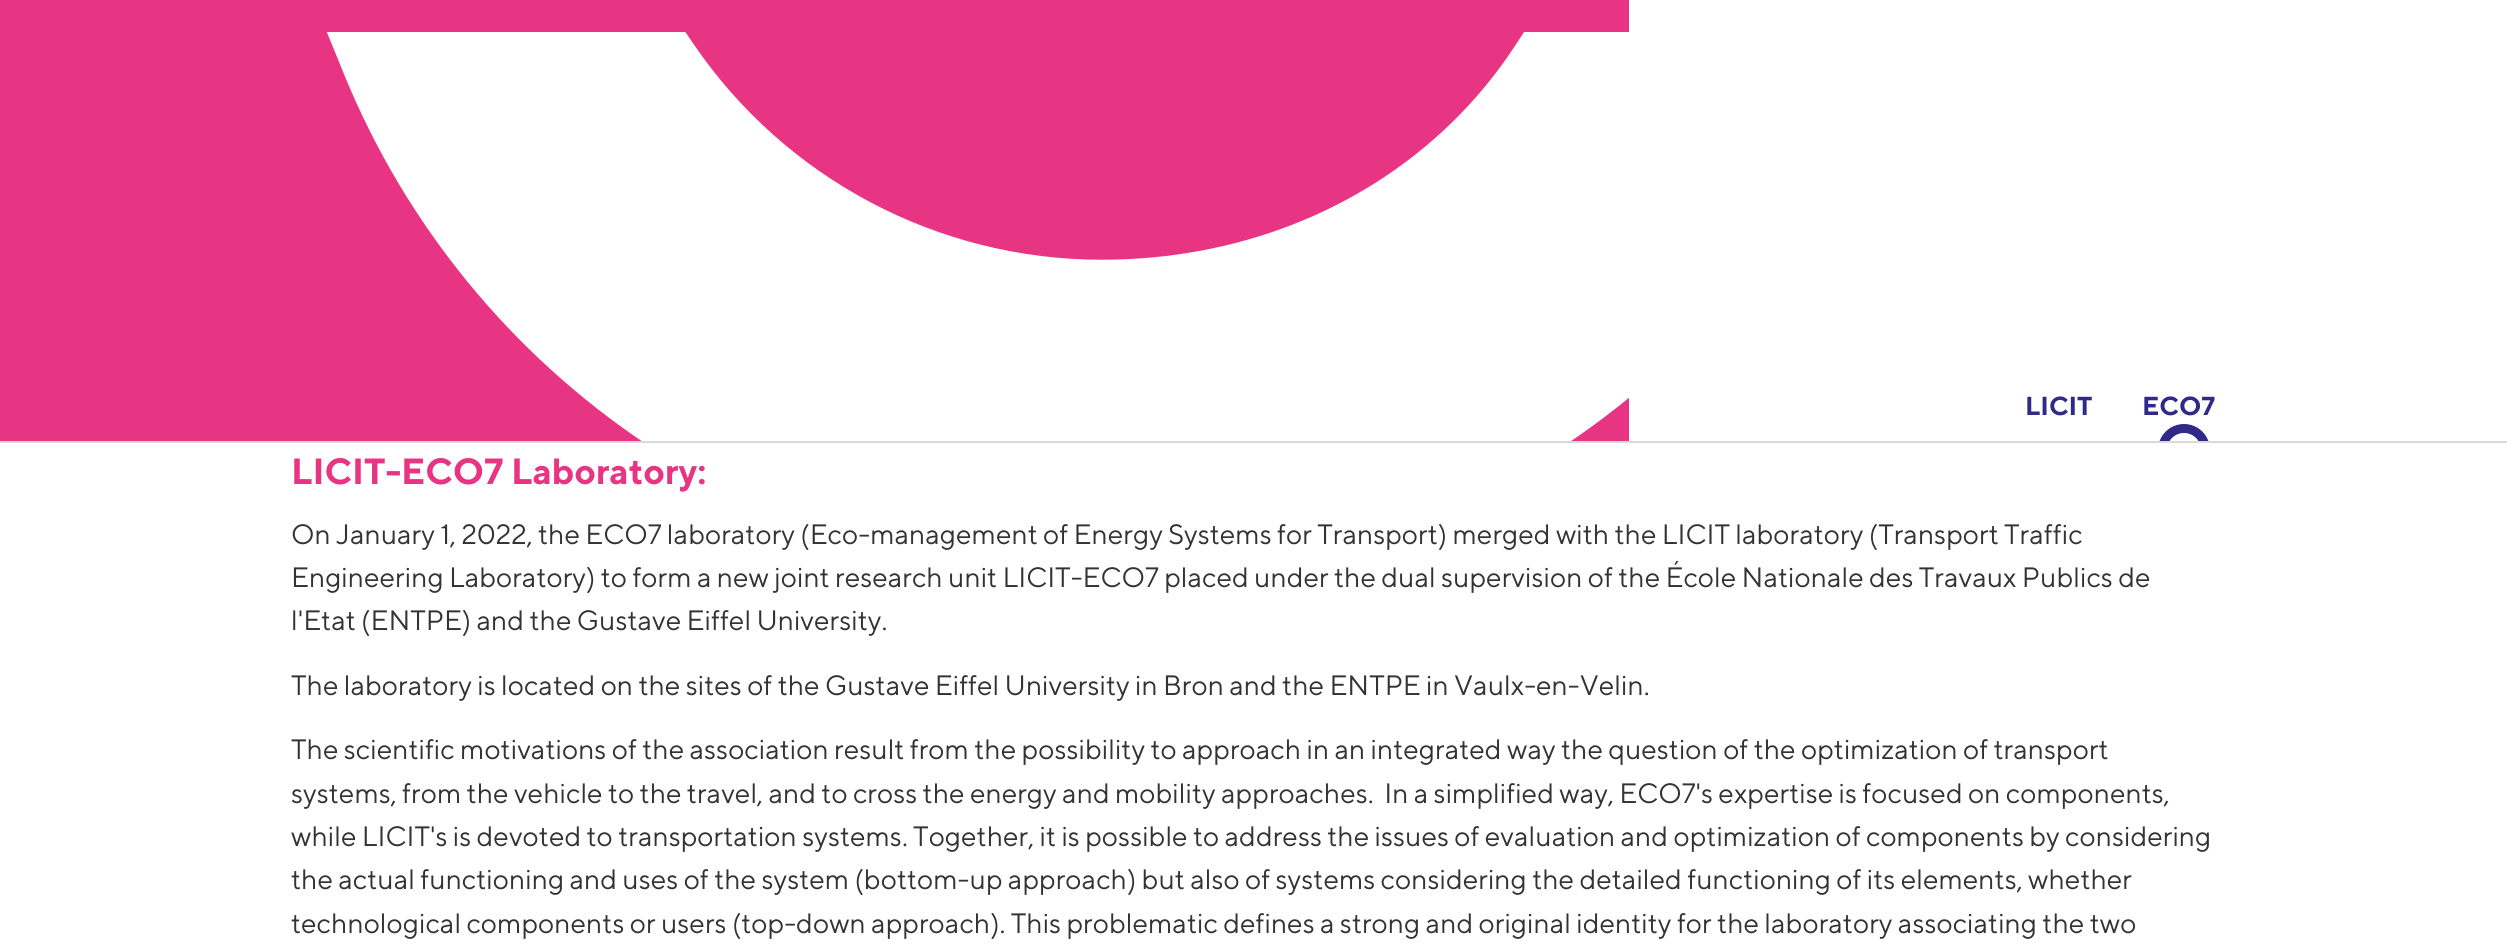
import math
import cairocffi as cairo

surface = cairo.ImageSurface(cairo.FORMAT_RGB24, 2507, 945)
ctx = cairo.Context(surface)
options = cairo.FontOptions()
options.set_hint_metrics(cairo.HINT_METRICS_OFF)
options.set_hint_style(cairo.HINT_STYLE_NONE)
ctx.set_font_options(options)
ctx.set_miter_limit(4)


def rgb(r, g, b):
    ctx.set_source_rgb(r / 255, g / 255, b / 255)


def face(family, size, italic, bold):
    ctx.select_font_face(family, cairo.FONT_SLANT_ITALIC if italic else cairo.FONT_SLANT_NORMAL, cairo.FONT_WEIGHT_BOLD if bold else cairo.FONT_WEIGHT_NORMAL)
    ctx.set_font_size(size)


def label(x, y, s):
    ctx.move_to(x, y)
    ctx.show_text(s)


def rect(x, y, w, h):
    ctx.rectangle(x, y, w, h)
    ctx.fill()


def image(path, x, y, w, h):
    ctx.save()
    ctx.set_source_surface(cairo.ImageSurface.create_from_png(path), x, y)
    ctx.rectangle(x, y, w, h)
    ctx.fill()
    ctx.restore()


rgb(255, 255, 255)
ctx.paint()
rgb(217, 217, 217)
ctx.new_path()
ctx.move_to(0, 441)
ctx.line_to(0, 443)
ctx.line_to(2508, 443)
ctx.line_to(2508, 2)
ctx.line_to(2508, 441)
ctx.close_path()
ctx.fill()
rgb(231, 53, 131)
rect(0, 0, 1629, 441)
image('image0.png', 326, 32, 1303, 409)
face('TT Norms', 26, 0, 1)
rgb(47, 42, 133)
label(2025, 415, 'LICIT')
label(2142, 415, 'ECO7')
ctx.save()
ctx.rectangle(2118, 371, 99, 70)
ctx.clip()
ctx.arc(2184, 450, 21.5, 0, 2 * math.pi)
ctx.set_line_width(9)
ctx.stroke()
ctx.restore()
face('TT Norms', 36.4, 0, 1)
rgb(231, 53, 131)
label(291, 484, 'LICIT-ECO7 Laboratory:')
face('TT Norms', 28, 0, 0)
rgb(51, 51, 51)
label(291, 544, 'On January 1, 2022, the ECO7 laboratory (Eco-management of Energy Systems for Transport) merged with the LICIT laboratory (Transport Traffic')
label(291, 587, 'Engineering Laboratory) to form a new joint research unit LICIT-ECO7 placed under the dual supervision of the École Nationale des Travaux Publics de')
label(291, 630, 'l\'Etat (ENTPE) and the Gustave Eiffel University.')
label(291, 695, 'The laboratory is located on the sites of the Gustave Eiffel University in Bron and the ENTPE in Vaulx-en-Velin.')
label(291, 759, 'The scientific motivations of the association result from the possibility to approach in an integrated way the question of the optimization of transport')
label(291, 803, 'systems, from the vehicle to the travel, and to cross the energy and mobility approaches.  In a simplified way, ECO7\'s expertise is focused on components,')
label(291, 846, 'while LICIT\'s is devoted to transportation systems. Together, it is possible to address the issues of evaluation and optimization of components by considering')
label(291, 889, 'the actual functioning and uses of the system (bottom-up approach) but also of systems considering the detailed functioning of its elements, whether')
label(291, 933, 'technological components or users (top-down approach). This problematic defines a strong and original identity for the laboratory associating the two')
surface.write_to_png('render.png')
